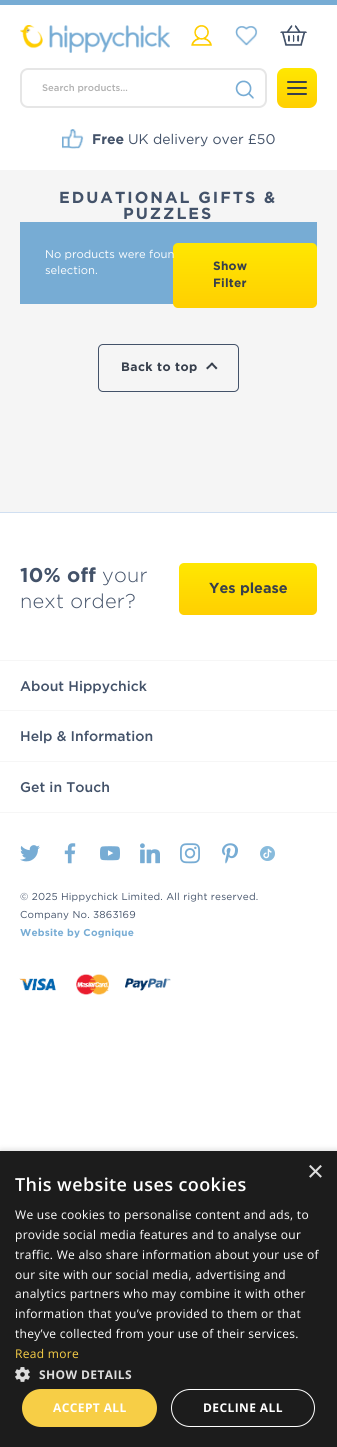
import math
import cairocffi as cairo

surface = cairo.ImageSurface(cairo.FORMAT_RGB24, 337, 1447)
ctx = cairo.Context(surface)
options = cairo.FontOptions()
options.set_hint_metrics(cairo.HINT_METRICS_OFF)
options.set_hint_style(cairo.HINT_STYLE_NONE)
ctx.set_font_options(options)
ctx.set_miter_limit(4)


def rgb(r, g, b):
    ctx.set_source_rgb(r / 255, g / 255, b / 255)


def face(family, size, italic, bold):
    ctx.select_font_face(family, cairo.FONT_SLANT_ITALIC if italic else cairo.FONT_SLANT_NORMAL, cairo.FONT_WEIGHT_BOLD if bold else cairo.FONT_WEIGHT_NORMAL)
    ctx.set_font_size(size)


def label(x, y, s):
    ctx.move_to(x, y)
    ctx.show_text(s)


def tracked(x, y, s, letter, word):
    ctx.move_to(x, y)
    for ch in s:
        ctx.show_text(ch)
        ctx.rel_move_to(letter + word * (ch == ' '), 0)


def rect(x, y, w, h):
    ctx.rectangle(x, y, w, h)
    ctx.fill()


def rrect(x, y, w, h, r):
    ctx.new_sub_path()
    for i, (u, v) in enumerate([(x + w - r, y + h - r), (x + r, y + h - r), (x + r, y + r), (x + w - r, y + r)]):
        ctx.arc(u, v, r, i * math.pi / 2, (i + 1) * math.pi / 2)
    ctx.close_path()


def soft_shadow(x, y, w, h, r, blur, alpha):
    ctx.push_group_with_content(cairo.CONTENT_ALPHA)
    ctx.set_operator(cairo.OPERATOR_SOURCE)
    for i in range(15, -16, -2):
        e = blur * i / 6
        if min(w, h) + 2 * e > 0:
            ctx.set_source_rgba(0, 0, 0, alpha * math.erfc((i - 1) / 8.5) / 2)
            rrect(x - e, y - e, w + 2 * e, h + 2 * e, max(0, min(r + e + blur * .6, min(w, h) / 2 + e)))
            ctx.fill()
    ctx.mask(ctx.pop_group())


def image(path, x, y, w, h):
    ctx.save()
    ctx.set_source_surface(cairo.ImageSurface.create_from_png(path), x, y)
    ctx.rectangle(x, y, w, h)
    ctx.fill()
    ctx.restore()


rgb(255, 255, 255)
ctx.paint()
rgb(119, 172, 212)
rect(0, 0, 337, 5)
image('image0.png', 20, 25, 150, 28)
image('image1.png', 191, 25, 21, 21)
image('image2.png', 235, 26, 23, 20)
image('image3.png', 280, 25, 27, 21)
image('image4.png', 235, 80, 19, 19)
rrect(21, 69, 245, 38, 7)
rgb(230, 230, 230)
ctx.stroke()
face('Gotham Medium', 9.5, 0, 0)
rgb(177, 177, 177)
label(42, 91, 'Search products…')
gradient = cairo.LinearGradient(297, 68, 297, 108)
gradient.add_color_stop_rgba(0, 1, 0.906, 0.004, 1)
gradient.add_color_stop_rgba(1, 1, 0.812, 0.004, 1)
ctx.set_source(gradient)
rrect(277, 68, 40, 40, 8)
ctx.fill()
rgb(55, 63, 76)
rrect(287, 81, 20, 2, 1)
ctx.fill()
rrect(287, 87, 20, 2, 1)
ctx.fill()
rrect(287, 93, 20, 2, 1)
ctx.fill()
image('image5.png', 62, 129, 22, 20)
face('Gotham', 14, 0, 1)
rgb(67, 82, 105)
label(92, 144, 'Free')
face('Gotham', 14, 0, 0)
label(128, 144, 'UK delivery over £50')
rgb(245, 245, 245)
rect(0, 170, 337, 342)
face('Gotham', 16, 0, 1)
rgb(67, 82, 105)
tracked(59, 203, 'EDUATIONAL GIFTS &', 2, 0)
tracked(123, 219, 'PUZZLES', 2, 0)
rgb(119, 172, 212)
rect(20, 222, 297, 82)
gradient = cairo.LinearGradient(245, 243, 245, 308)
gradient.add_color_stop_rgba(0, 1, 0.906, 0.004, 1)
gradient.add_color_stop_rgba(1, 1, 0.812, 0.004, 1)
ctx.set_source(gradient)
rrect(173, 243, 144, 65, 5)
ctx.fill()
face('Gotham', 12, 0, 1)
rgb(55, 63, 76)
tracked(213, 270, 'Show', 0.2, 0)
tracked(213, 287, 'Filter', 0.2, 0)
face('Gotham', 11.25, 0, 0)
rgb(255, 255, 255)
label(45, 258, 'No products were foun')
label(45, 274, 'selection.')
rrect(98.5, 344.5, 140, 47, 4.5)
rgb(67, 82, 105)
ctx.set_line_width(1)
ctx.stroke()
face('Gotham', 12.25, 0, 1)
rgb(55, 63, 76)
tracked(121, 371, 'Back to top', 0.4, 0)
ctx.new_path()
ctx.move_to(207.5, 369.5)
ctx.line_to(206, 368)
ctx.line_to(212, 362.5)
ctx.line_to(213.5, 363.5)
ctx.close_path()
ctx.fill()
ctx.new_path()
ctx.move_to(216, 369.5)
ctx.line_to(210.5, 363.5)
ctx.line_to(212, 362.5)
ctx.line_to(217.5, 368)
ctx.close_path()
ctx.fill()
rgb(208, 223, 241)
rect(0, 512, 337, 1)
face('Gotham', 20, 0, 1)
rgb(67, 82, 105)
tracked(20, 582, '10% off', 0.2, 0)
face('Gotham Light', 20, 0, 0)
tracked(102, 582, 'your', 0.2, 0)
tracked(20, 608, 'next order?', 0.2, 0)
gradient = cairo.LinearGradient(248, 563, 248, 615)
gradient.add_color_stop_rgba(0, 1, 0.906, 0.004, 1)
gradient.add_color_stop_rgba(1, 1, 0.812, 0.004, 1)
ctx.set_source(gradient)
rrect(179, 563, 138, 52, 5)
ctx.fill()
face('Gotham', 14.5, 0, 1)
rgb(55, 63, 76)
label(209, 593, 'Yes please')
rgb(246, 246, 246)
rect(0, 660, 337, 1)
face('Gotham Medium', 14, 0, 0)
rgb(67, 82, 105)
label(20, 691, 'About Hippychick')
rgb(246, 246, 246)
rect(0, 710, 337, 1)
rgb(67, 82, 105)
label(20, 741, 'Help & Information')
rgb(246, 246, 246)
rect(0, 812, 337, 1)
rect(0, 761, 337, 1)
rgb(67, 82, 105)
label(20, 792, 'Get in Touch')
image('image6.png', 20, 845, 20, 17)
image('image7.png', 64, 843, 12, 21)
image('image8.png', 100, 846, 20, 15)
image('image9.png', 140, 843, 20, 21)
image('image10.png', 180, 843, 20, 21)
image('image11.png', 222, 843, 16, 21)
image('image12.png', 260, 846, 15, 15)
face('Gotham', 10, 0, 0)
tracked(20, 900, '© 2025 Hippychick Limited. All right reserved.', 0.2, 0)
tracked(20, 918, 'Company No. 3863169', 0.2, 0)
face('Gotham', 10, 0, 1)
rgb(119, 172, 212)
tracked(20, 936, 'Website by Cognique', 0.2, 0)
image('image13.png', 19, 978, 37, 13)
image('image14.png', 76, 974, 33, 21)
image('image15.png', 125, 978, 46, 13)
rgb(0, 0, 0)
soft_shadow(1, 1153, 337, 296, 0, 4, 0.35)
rgb(28, 28, 28)
rect(0, 1151, 337, 296)
face('Liberation Sans', 29, 0, 0)
rgb(221, 221, 221)
label(307, 1181, '×')
face('Open Sans SemiBold', 18, 0, 0)
rgb(255, 255, 255)
tracked(15, 1191, 'This website uses cookies', 0.4, 0)
face('Open Sans', 12, 0, 0)
tracked(15, 1219, 'We use cookies to personalise content and ads, to', 0.3, 0)
tracked(15, 1239, 'provide social media features and to analyse our', 0.3, 0)
tracked(15, 1259, 'traffic. We also share information about your use of', 0.3, 0)
tracked(15, 1279, 'our site with our social media, advertising and', 0.3, 0)
tracked(15, 1298, 'analytics partners who may combine it with other', 0.3, 0)
tracked(15, 1318, 'information that you’ve provided to them or that', 0.3, 0)
tracked(15, 1338, 'they’ve collected from your use of their services.', 0.3, 0)
rgb(247, 206, 70)
tracked(15, 1358, 'Read more', 0.3, 0)
image('image16.png', 15, 1367, 15, 15)
face('Open Sans', 12, 0, 1)
rgb(221, 221, 221)
tracked(39, 1379, 'SHOW DETAILS', 0.4, 0)
rgb(247, 206, 70)
rrect(22, 1389, 135, 38, 19)
ctx.fill()
rgb(255, 255, 255)
tracked(53, 1412, 'ACCEPT ALL', 0.4, 0)
rrect(171.5, 1389.5, 143, 37, 18.5)
ctx.stroke()
tracked(203, 1412, 'DECLINE ALL', 0.4, 0)
surface.write_to_png('render.png')
